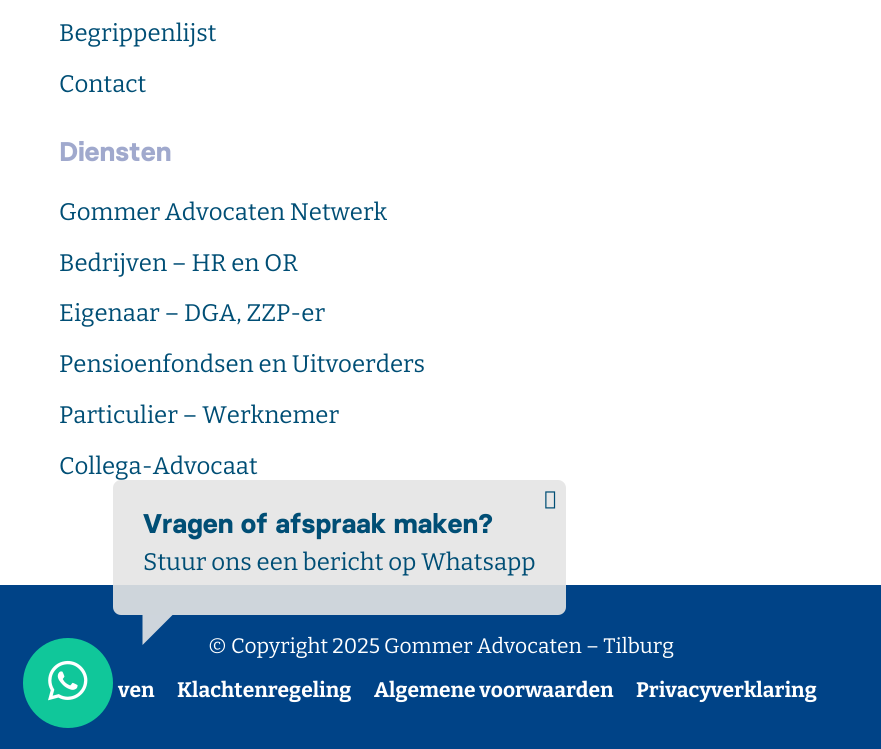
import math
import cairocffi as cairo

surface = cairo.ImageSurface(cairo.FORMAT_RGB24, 881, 749)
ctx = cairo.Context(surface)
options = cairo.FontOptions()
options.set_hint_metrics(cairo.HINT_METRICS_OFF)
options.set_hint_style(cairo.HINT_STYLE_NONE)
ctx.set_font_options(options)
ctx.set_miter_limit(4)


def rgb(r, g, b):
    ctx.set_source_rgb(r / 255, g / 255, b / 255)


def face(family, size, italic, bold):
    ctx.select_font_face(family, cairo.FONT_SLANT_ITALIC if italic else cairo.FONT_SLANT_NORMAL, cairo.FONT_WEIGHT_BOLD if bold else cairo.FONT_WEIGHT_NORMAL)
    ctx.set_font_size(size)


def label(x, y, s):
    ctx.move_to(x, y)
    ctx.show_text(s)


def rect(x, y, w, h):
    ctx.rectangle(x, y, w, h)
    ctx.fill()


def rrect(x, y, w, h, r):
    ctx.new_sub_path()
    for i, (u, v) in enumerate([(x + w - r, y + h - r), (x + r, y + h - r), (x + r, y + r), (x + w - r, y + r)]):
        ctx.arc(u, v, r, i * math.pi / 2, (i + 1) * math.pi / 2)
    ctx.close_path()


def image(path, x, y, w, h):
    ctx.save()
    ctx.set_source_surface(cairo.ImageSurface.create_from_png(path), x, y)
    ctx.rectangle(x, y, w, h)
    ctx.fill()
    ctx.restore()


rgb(255, 255, 255)
ctx.paint()
face('Bitter', 24, 0, 0)
rgb(0, 78, 117)
label(59, 41, 'Begrippenlijst')
label(59, 92, 'Contact')
face('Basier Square', 27, 0, 1)
rgb(160, 169, 205)
label(59, 161, 'Diensten')
face('Bitter', 24, 0, 0)
rgb(0, 78, 117)
label(59, 220, 'Gommer Advocaten Netwerk')
label(59, 271, 'Bedrijven – HR en OR')
label(59, 321, 'Eigenaar – DGA, ZZP-er')
label(59, 372, 'Pensioenfondsen en Uitvoerders')
label(59, 423, 'Particulier – Werknemer')
label(59, 474, 'Collega-Advocaat')
rgb(0, 67, 135)
rect(0, 585, 881, 164)
face('Bitter', 21, 0, 0)
rgb(255, 255, 255)
label(208, 653, '© Copyright 2025 Gommer Advocaten – Tilburg')
face('Bitter', 21, 0, 1)
label(118, 697, 'ven')
label(177, 697, 'Klachtenregeling')
label(374, 697, 'Algemene voorwaarden')
label(636, 697, 'Privacyverklaring')
ctx.set_source_rgba(0.898, 0.898, 0.898, 0.9)
rrect(113, 480, 453, 135, 8)
ctx.fill()
image('image0.png', 545, 491, 11, 18)
face('Basier Square', 27, 0, 1)
rgb(0, 78, 117)
label(143, 533, 'Vragen of afspraak maken?')
face('Bitter', 24, 0, 0)
label(143, 570, 'Stuur ons een bericht op Whatsapp')
rgb(206, 213, 220)
ctx.new_path()
ctx.move_to(142.5, 615)
ctx.line_to(172.5, 615)
ctx.line_to(142.5, 645)
ctx.close_path()
ctx.fill()
rgb(16, 199, 154)
ctx.arc(68, 683, 41, 0, 2 * math.pi)
ctx.fill_preserve()
ctx.set_line_width(8)
ctx.stroke()
image('image1.png', 48, 660, 40, 41)
surface.write_to_png('render.png')
